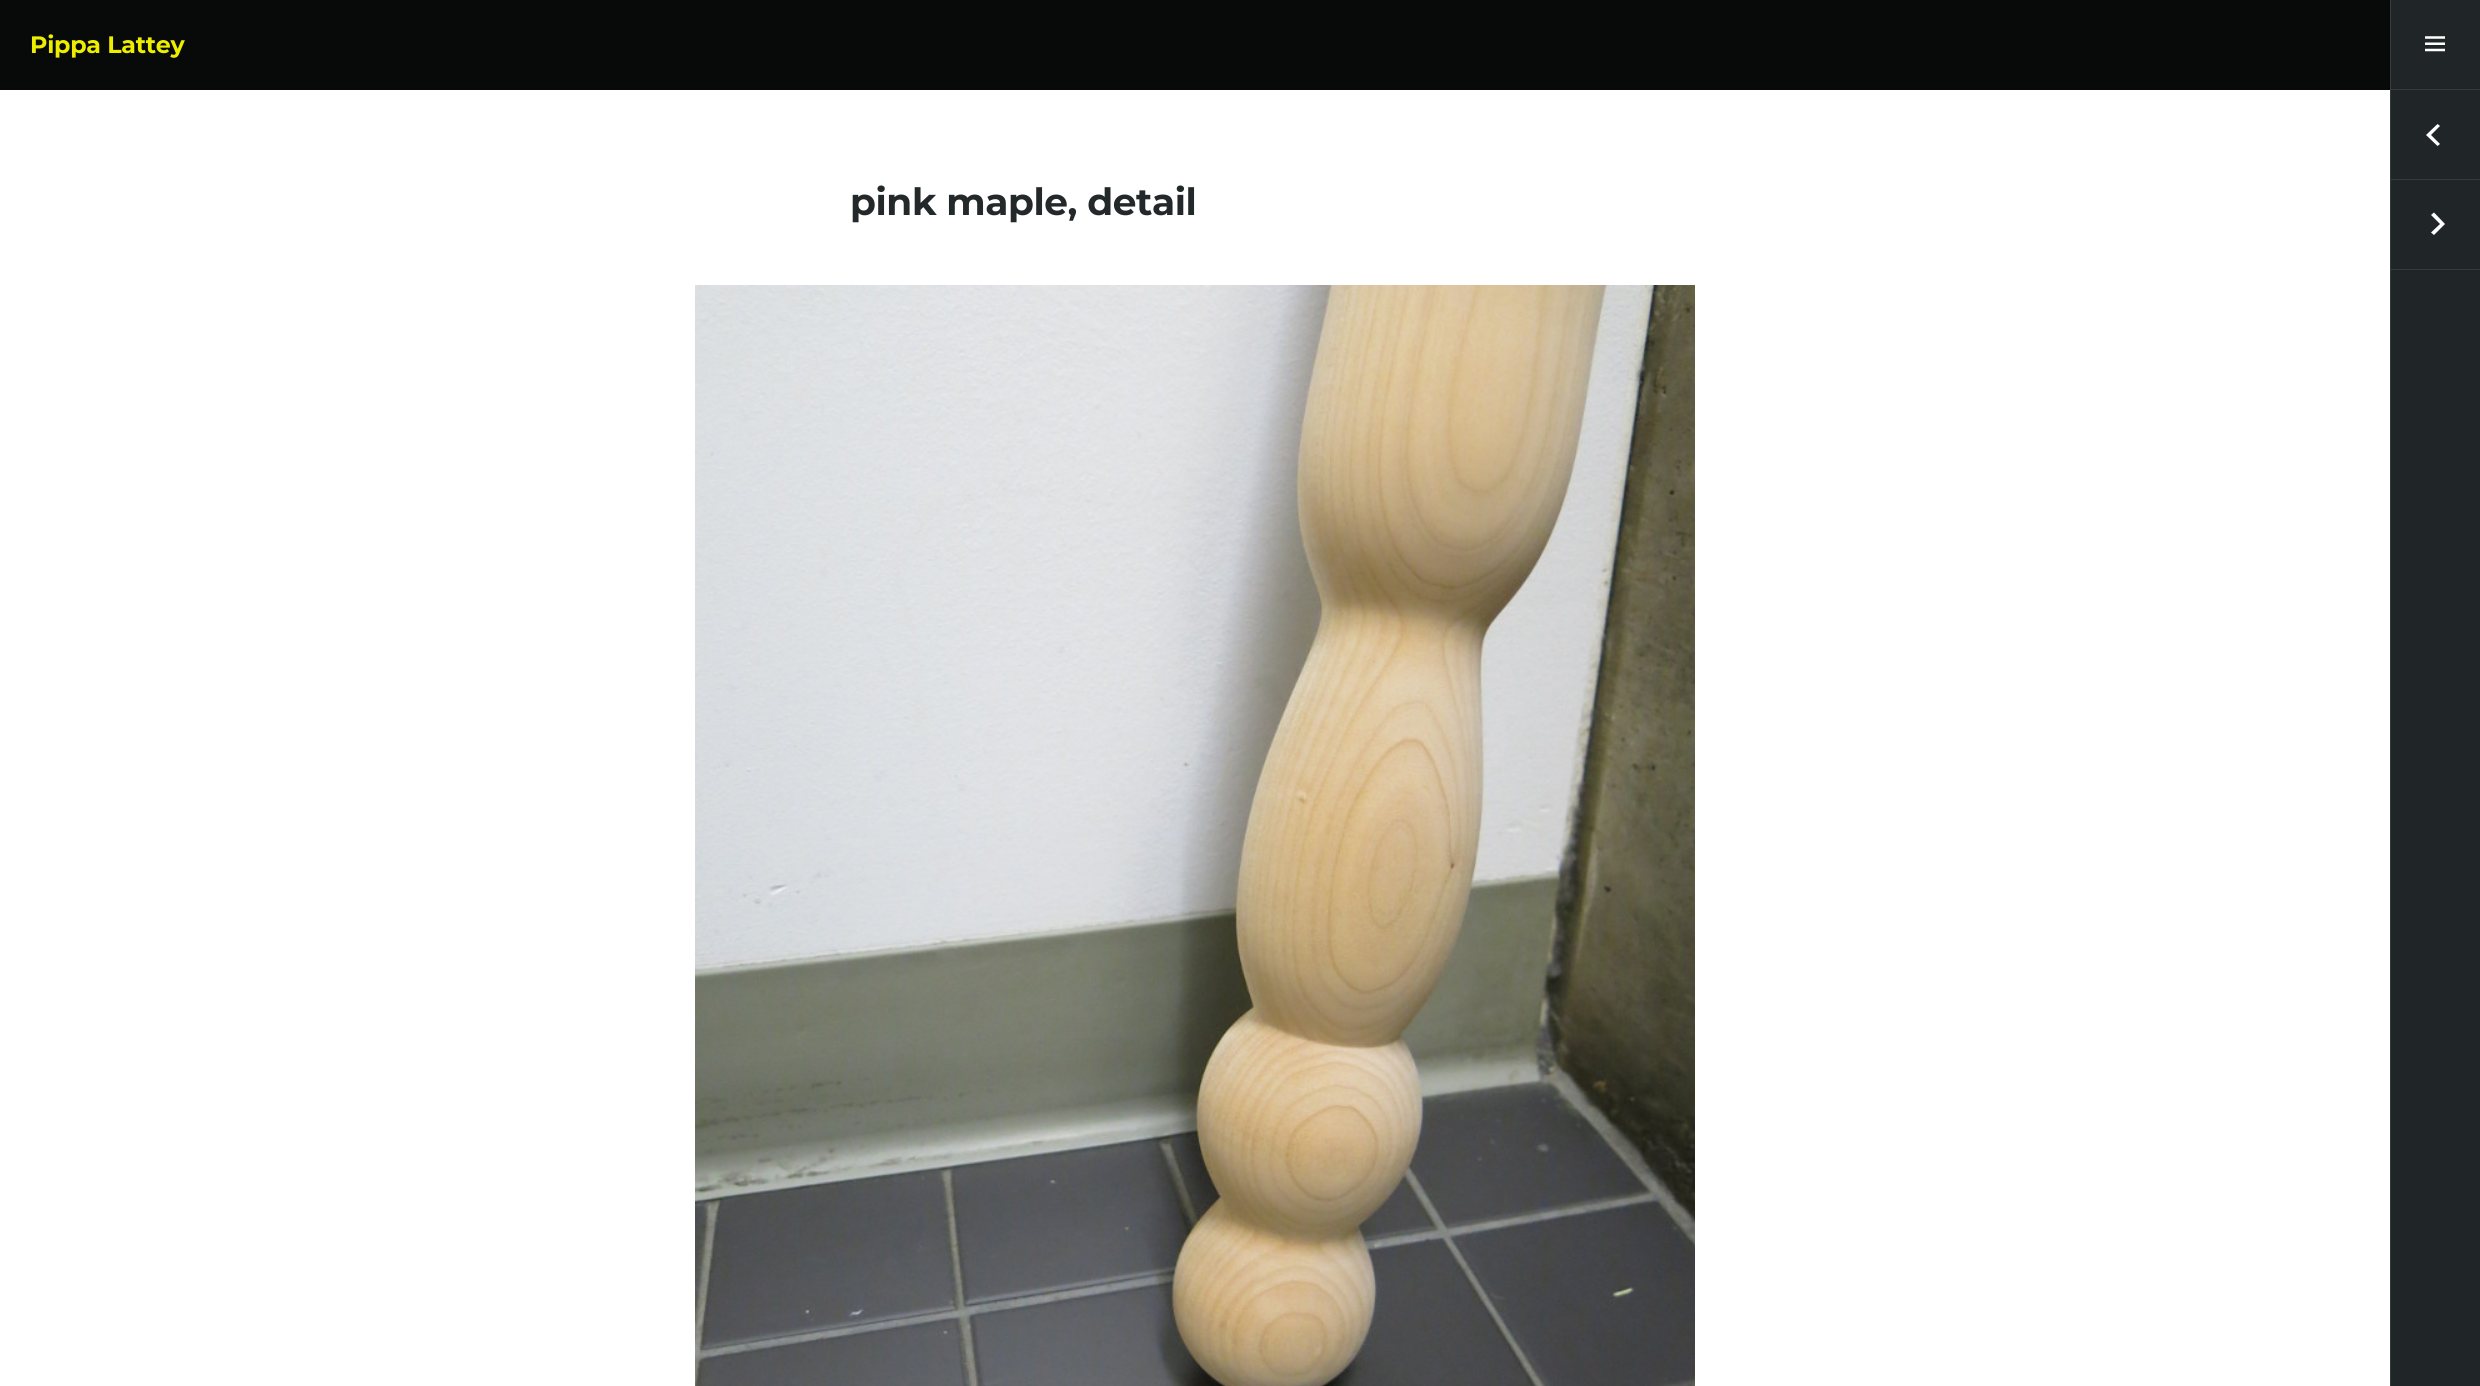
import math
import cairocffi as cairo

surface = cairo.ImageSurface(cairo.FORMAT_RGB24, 2480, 1386)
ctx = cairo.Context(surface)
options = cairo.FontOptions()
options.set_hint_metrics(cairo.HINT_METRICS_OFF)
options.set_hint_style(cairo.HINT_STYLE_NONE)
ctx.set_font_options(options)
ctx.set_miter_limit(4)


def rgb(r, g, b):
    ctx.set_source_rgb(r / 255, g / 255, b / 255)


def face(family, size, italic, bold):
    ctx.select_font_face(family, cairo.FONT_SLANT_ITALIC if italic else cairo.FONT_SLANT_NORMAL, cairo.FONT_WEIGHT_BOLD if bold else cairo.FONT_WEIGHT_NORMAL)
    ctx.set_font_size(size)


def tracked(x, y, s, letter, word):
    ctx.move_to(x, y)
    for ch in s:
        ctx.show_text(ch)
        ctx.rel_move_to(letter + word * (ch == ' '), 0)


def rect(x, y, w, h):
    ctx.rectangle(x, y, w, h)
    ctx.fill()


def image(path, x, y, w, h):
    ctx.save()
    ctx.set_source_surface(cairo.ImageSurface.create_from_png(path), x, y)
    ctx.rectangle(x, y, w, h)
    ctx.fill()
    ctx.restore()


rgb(255, 255, 255)
ctx.paint()
rgb(8, 10, 10)
rect(0, 0, 2390, 90)
face('Montserrat', 23.75, 0, 1)
rgb(237, 237, 0)
tracked(30, 53, 'Pippa Lattey', -0.25, 0)
rgb(32, 38, 40)
rect(2391, 0, 89, 1386)
image('image0.png', 2425, 36, 20, 16)
face('Montserrat', 37.5, 0, 1)
rgb(35, 41, 43)
tracked(850, 215, 'pink maple, detail', -0.4, 0)
image('image1.png', 695, 285, 1000, 1101)
rgb(54, 60, 62)
rect(2390, 89, 90, 1)
rect(2390, 0, 1, 1386)
rgb(32, 38, 40)
rect(2390, 90, 1, 180)
rgb(54, 60, 62)
ctx.new_path()
ctx.move_to(2480, 180)
ctx.line_to(2390, 180)
ctx.line_to(2391, 179)
ctx.line_to(2480, 179)
ctx.close_path()
ctx.fill()
ctx.set_source_rgba(1, 1, 1, 0.1)
ctx.new_path()
ctx.move_to(2390, 180)
ctx.line_to(2390, 90)
ctx.line_to(2391, 90)
ctx.line_to(2391, 179)
ctx.close_path()
ctx.fill()
rgb(255, 255, 255)
ctx.new_path()
ctx.move_to(2440, 144)
ctx.line_to(2437.5, 146)
ctx.line_to(2426, 135)
ctx.line_to(2437.5, 124)
ctx.line_to(2440, 126)
ctx.line_to(2431, 135)
ctx.close_path()
ctx.fill()
rgb(54, 60, 62)
ctx.new_path()
ctx.move_to(2390, 270)
ctx.line_to(2390, 180)
ctx.line_to(2391, 180)
ctx.line_to(2391, 269)
ctx.close_path()
ctx.fill()
ctx.set_source_rgba(1, 1, 1, 0.1)
ctx.new_path()
ctx.move_to(2480, 270)
ctx.line_to(2390, 270)
ctx.line_to(2391, 269)
ctx.line_to(2480, 269)
ctx.close_path()
ctx.fill()
rgb(255, 255, 255)
ctx.new_path()
ctx.move_to(2431, 215)
ctx.line_to(2434, 212.5)
ctx.line_to(2445, 224)
ctx.line_to(2434, 235)
ctx.line_to(2431, 232.5)
ctx.line_to(2440, 224)
ctx.close_path()
ctx.fill()
rgb(74, 80, 81)
rect(2390, 89, 1, 1)
surface.write_to_png('render.png')
